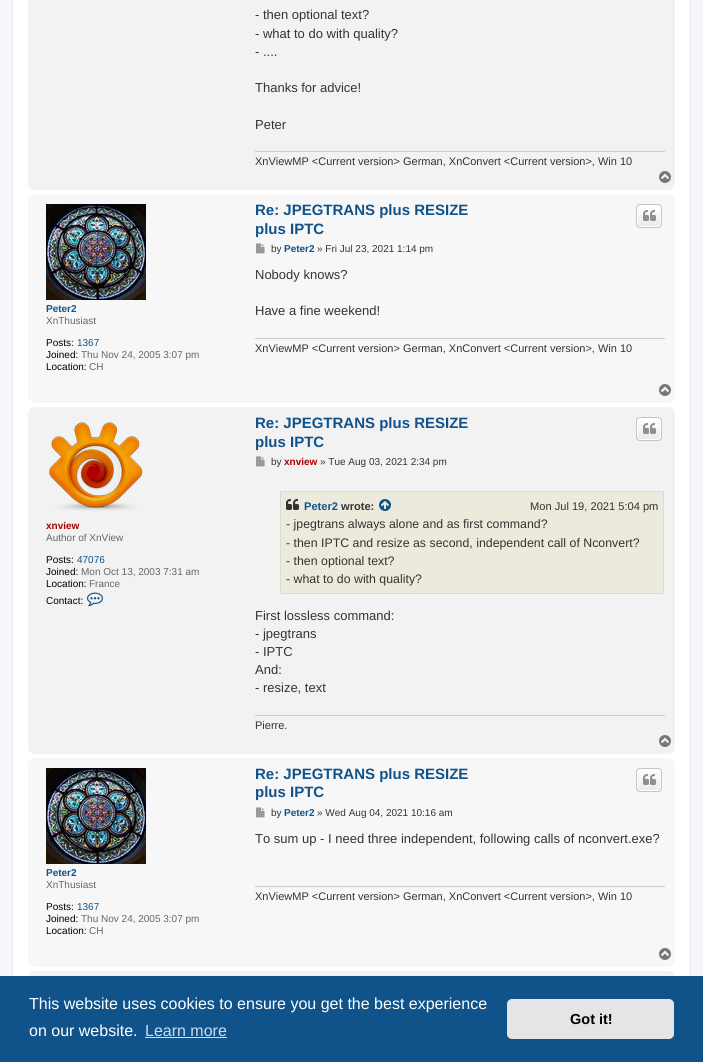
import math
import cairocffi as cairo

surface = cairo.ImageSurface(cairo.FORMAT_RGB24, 703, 1062)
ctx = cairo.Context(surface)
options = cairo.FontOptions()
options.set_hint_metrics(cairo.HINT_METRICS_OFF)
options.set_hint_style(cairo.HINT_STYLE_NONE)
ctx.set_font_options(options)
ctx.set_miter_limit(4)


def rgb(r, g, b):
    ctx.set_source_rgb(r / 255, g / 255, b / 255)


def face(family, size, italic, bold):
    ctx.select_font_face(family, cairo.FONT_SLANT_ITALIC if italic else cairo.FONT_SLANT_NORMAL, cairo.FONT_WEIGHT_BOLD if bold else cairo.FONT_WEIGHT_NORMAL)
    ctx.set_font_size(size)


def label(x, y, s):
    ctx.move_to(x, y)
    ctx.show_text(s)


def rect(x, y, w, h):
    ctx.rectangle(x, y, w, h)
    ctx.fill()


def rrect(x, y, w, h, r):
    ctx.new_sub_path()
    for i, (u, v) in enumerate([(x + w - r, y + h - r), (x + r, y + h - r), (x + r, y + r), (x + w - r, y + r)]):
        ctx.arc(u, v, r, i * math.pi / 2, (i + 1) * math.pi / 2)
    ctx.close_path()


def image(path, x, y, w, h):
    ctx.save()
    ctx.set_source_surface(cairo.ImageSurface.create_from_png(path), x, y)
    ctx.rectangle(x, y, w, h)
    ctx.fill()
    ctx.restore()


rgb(245, 247, 250)
ctx.paint()
rgb(255, 255, 255)
rect(13, 0, 677, 976)
ctx.rectangle(12.5, -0.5, 678, 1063)
rgb(230, 233, 237)
ctx.set_line_width(1)
ctx.stroke()
rgb(242, 242, 242)
rrect(28, -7, 647, 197, 7)
ctx.fill()
face('Liberation Sans', 13, 0, 0)
rgb(51, 51, 51)
label(255, 19, '- then optional text?')
label(255, 38, '- what to do with quality?')
label(255, 56, '- ....')
label(255, 92, 'Thanks for advice!')
label(255, 129, 'Peter')
rgb(204, 204, 204)
rect(255, 151, 410, 1)
face('Liberation Sans', 11, 0, 0)
rgb(51, 51, 51)
label(255, 165, 'XnViewMP <Current version> German, XnConvert <Current version>, Win 10')
image('image0.png', 659, 171, 12, 12)
rgb(247, 247, 247)
rrect(28, 194, 647, 209, 7)
ctx.fill()
image('image1.png', 46, 204, 100, 96)
face('Liberation Sans', 10, 0, 1)
rgb(16, 82, 137)
label(46, 312, 'Peter2')
face('Liberation Sans', 10, 0, 0)
rgb(102, 102, 102)
label(46, 324, 'XnThusiast')
rgb(0, 0, 0)
label(46, 346, 'Posts:')
rgb(16, 82, 137)
label(77, 346, '1367')
rgb(0, 0, 0)
label(46, 358, 'Joined:')
rgb(102, 102, 102)
label(81, 358, 'Thu Nov 24, 2005 3:07 pm')
rgb(0, 0, 0)
label(46, 370, 'Location:')
rgb(102, 102, 102)
label(89, 370, 'CH')
face('Liberation Sans', 15, 0, 1)
rgb(16, 82, 137)
label(255, 215, 'Re: JPEGTRANS plus RESIZE')
label(255, 234, 'plus IPTC')
ctx.save()
rrect(636, 204, 26, 24, 4)
ctx.clip()
gradient = cairo.LinearGradient(649, 205, 649, 227)
gradient.add_color_stop_rgba(0, 1, 1, 1, 1)
gradient.add_color_stop_rgba(1, 0.914, 0.914, 0.914, 1)
ctx.set_source(gradient)
rect(636, 205, 26, 22)
ctx.restore()
rrect(637.5, 205.5, 23, 21, 2.5)
rgb(255, 255, 255)
ctx.stroke()
rrect(636.5, 204.5, 25, 23, 3.5)
rgb(199, 195, 191)
ctx.stroke()
image('image2.png', 643, 210, 13, 11)
image('image3.png', 256, 243, 9, 11)
face('Liberation Sans', 10, 0, 0)
rgb(51, 51, 51)
label(271, 252, 'by')
face('Liberation Sans', 10, 0, 1)
rgb(16, 82, 137)
label(284, 252, 'Peter2')
face('Liberation Sans', 10, 0, 0)
rgb(51, 51, 51)
label(317, 252, '» Fri Jul 23, 2021 1:14 pm')
face('Liberation Sans', 13, 0, 0)
label(255, 279, 'Nobody knows?')
label(255, 315, 'Have a fine weekend!')
rgb(204, 204, 204)
rect(255, 338, 410, 1)
face('Liberation Sans', 11, 0, 0)
rgb(51, 51, 51)
label(255, 352, 'XnViewMP <Current version> German, XnConvert <Current version>, Win 10')
image('image4.png', 659, 384, 12, 12)
rgb(242, 242, 242)
rrect(28, 407, 647, 347, 7)
ctx.fill()
image('image5.png', 49, 422, 94, 89)
face('Liberation Sans', 10, 0, 1)
rgb(170, 0, 0)
label(46, 529, 'xnview')
face('Liberation Sans', 10, 0, 0)
rgb(102, 102, 102)
label(46, 541, 'Author of XnView')
rgb(0, 0, 0)
label(46, 563, 'Posts:')
rgb(16, 82, 137)
label(77, 563, '47076')
rgb(0, 0, 0)
label(46, 575, 'Joined:')
rgb(102, 102, 102)
label(81, 575, 'Mon Oct 13, 2003 7:31 am')
rgb(0, 0, 0)
label(46, 587, 'Location:')
rgb(102, 102, 102)
label(89, 587, 'France')
rgb(0, 0, 0)
label(46, 604, 'Contact:')
image('image6.png', 87, 592, 16, 15)
face('Liberation Sans', 15, 0, 1)
rgb(16, 82, 137)
label(255, 428, 'Re: JPEGTRANS plus RESIZE')
label(255, 447, 'plus IPTC')
ctx.save()
rrect(636, 417, 26, 24, 4)
ctx.clip()
gradient = cairo.LinearGradient(649, 418, 649, 440)
gradient.add_color_stop_rgba(0, 1, 1, 1, 1)
gradient.add_color_stop_rgba(1, 0.914, 0.914, 0.914, 1)
ctx.set_source(gradient)
rect(636, 418, 26, 22)
ctx.restore()
rrect(637.5, 418.5, 23, 21, 2.5)
rgb(255, 255, 255)
ctx.stroke()
rrect(636.5, 417.5, 25, 23, 3.5)
rgb(199, 195, 191)
ctx.stroke()
image('image2.png', 643, 423, 13, 11)
image('image7.png', 256, 456, 9, 11)
face('Liberation Sans', 10, 0, 0)
rgb(51, 51, 51)
label(271, 465, 'by')
face('Liberation Sans', 10, 0, 1)
rgb(170, 0, 0)
label(284, 465, 'xnview')
face('Liberation Sans', 10, 0, 0)
rgb(51, 51, 51)
label(320, 465, '» Tue Aug 03, 2021 2:34 pm')
rgb(235, 234, 221)
ctx.rectangle(280.5, 491.5, 383, 102)
ctx.fill_preserve()
rgb(219, 219, 206)
ctx.stroke()
image('image8.png', 286, 499, 13, 11)
face('Liberation Sans', 11.1, 0, 1)
rgb(16, 82, 137)
label(304, 510, 'Peter2')
rgb(51, 51, 51)
label(341, 510, 'wrote:')
image('image9.png', 379, 499, 12, 12)
face('Liberation Sans', 11.1, 0, 0)
label(530, 510, 'Mon Jul 19, 2021 5:04 pm')
face('Liberation Sans', 12.35, 0, 0)
label(286, 528, '- jpegtrans always alone and as first command?')
label(286, 547, '- then IPTC and resize as second, independent call of Nconvert?')
label(286, 565, '- then optional text?')
label(286, 583, '- what to do with quality?')
face('Liberation Sans', 13, 0, 0)
label(255, 620, 'First lossless command:')
label(255, 638, '- jpegtrans')
label(255, 656, '- IPTC')
label(255, 674, 'And:')
label(255, 692, '- resize, text')
rgb(204, 204, 204)
rect(255, 715, 410, 1)
face('Liberation Sans', 11, 0, 0)
rgb(51, 51, 51)
label(255, 729, 'Pierre.')
image('image0.png', 659, 735, 12, 12)
rgb(247, 247, 247)
rrect(28, 758, 647, 209, 7)
ctx.fill()
image('image1.png', 46, 768, 100, 96)
face('Liberation Sans', 10, 0, 1)
rgb(16, 82, 137)
label(46, 876, 'Peter2')
face('Liberation Sans', 10, 0, 0)
rgb(102, 102, 102)
label(46, 888, 'XnThusiast')
rgb(0, 0, 0)
label(46, 910, 'Posts:')
rgb(16, 82, 137)
label(77, 910, '1367')
rgb(0, 0, 0)
label(46, 922, 'Joined:')
rgb(102, 102, 102)
label(81, 922, 'Thu Nov 24, 2005 3:07 pm')
rgb(0, 0, 0)
label(46, 934, 'Location:')
rgb(102, 102, 102)
label(89, 934, 'CH')
face('Liberation Sans', 15, 0, 1)
rgb(16, 82, 137)
label(255, 779, 'Re: JPEGTRANS plus RESIZE')
label(255, 797, 'plus IPTC')
ctx.save()
rrect(636, 768, 26, 24, 4)
ctx.clip()
gradient = cairo.LinearGradient(649, 769, 649, 791)
gradient.add_color_stop_rgba(0, 1, 1, 1, 1)
gradient.add_color_stop_rgba(1, 0.914, 0.914, 0.914, 1)
ctx.set_source(gradient)
rect(636, 769, 26, 22)
ctx.restore()
rrect(637.5, 769.5, 23, 21, 2.5)
rgb(255, 255, 255)
ctx.stroke()
rrect(636.5, 768.5, 25, 23, 3.5)
rgb(199, 195, 191)
ctx.stroke()
image('image2.png', 643, 774, 13, 11)
image('image3.png', 256, 807, 9, 11)
face('Liberation Sans', 10, 0, 0)
rgb(51, 51, 51)
label(271, 816, 'by')
face('Liberation Sans', 10, 0, 1)
rgb(16, 82, 137)
label(284, 816, 'Peter2')
face('Liberation Sans', 10, 0, 0)
rgb(51, 51, 51)
label(317, 816, '» Wed Aug 04, 2021 10:16 am')
face('Liberation Sans', 13, 0, 0)
label(255, 843, 'To sum up - I need three independent, following calls of nconvert.exe?')
rgb(204, 204, 204)
rect(255, 886, 410, 1)
face('Liberation Sans', 11, 0, 0)
rgb(51, 51, 51)
label(255, 900, 'XnViewMP <Current version> German, XnConvert <Current version>, Win 10')
image('image4.png', 659, 948, 12, 12)
rgb(242, 242, 242)
rrect(28, 971, 647, 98, 7)
ctx.fill()
rgb(15, 83, 138)
rect(0, 976, 703, 86)
face('Liberation Sans', 16, 0, 0)
rgb(255, 255, 255)
label(29, 1009, 'This website uses cookies to ensure you get the best experience')
label(29, 1036, 'on our website.')
rgb(207, 221, 232)
label(145, 1036, 'Learn more')
rect(145, 1037, 82, 1)
rgb(229, 229, 229)
rrect(507, 999, 167, 40, 5)
ctx.fill()
face('Liberation Sans', 14.5, 0, 1)
rgb(0, 0, 0)
label(570, 1024, 'Got it!')
surface.write_to_png('render.png')
